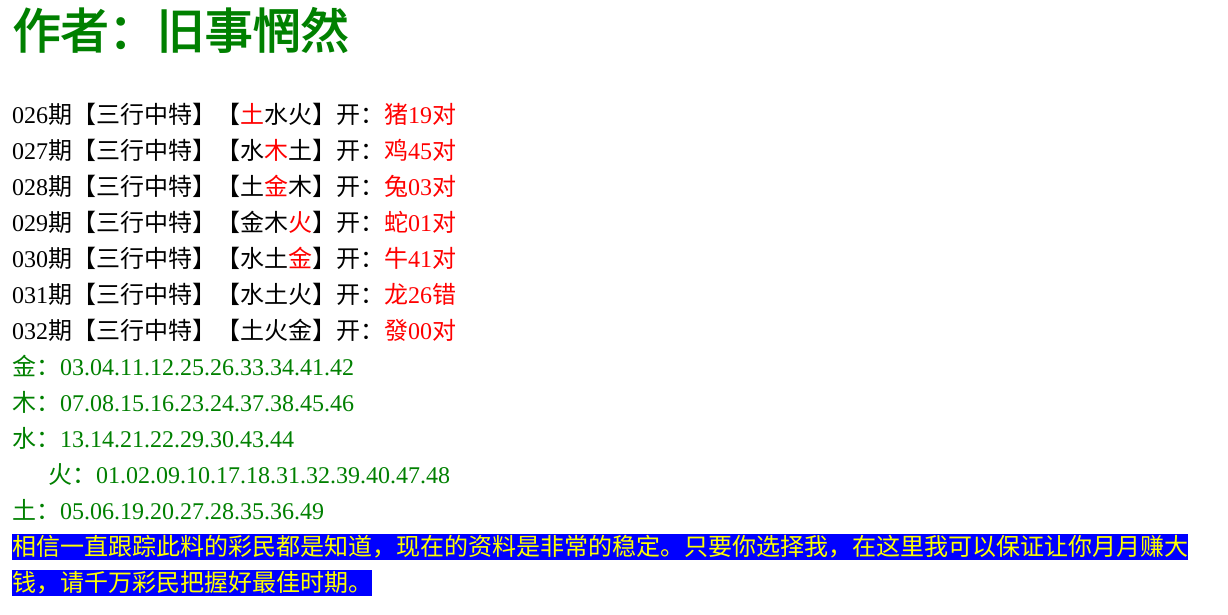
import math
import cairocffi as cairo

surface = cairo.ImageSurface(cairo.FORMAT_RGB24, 1228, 615)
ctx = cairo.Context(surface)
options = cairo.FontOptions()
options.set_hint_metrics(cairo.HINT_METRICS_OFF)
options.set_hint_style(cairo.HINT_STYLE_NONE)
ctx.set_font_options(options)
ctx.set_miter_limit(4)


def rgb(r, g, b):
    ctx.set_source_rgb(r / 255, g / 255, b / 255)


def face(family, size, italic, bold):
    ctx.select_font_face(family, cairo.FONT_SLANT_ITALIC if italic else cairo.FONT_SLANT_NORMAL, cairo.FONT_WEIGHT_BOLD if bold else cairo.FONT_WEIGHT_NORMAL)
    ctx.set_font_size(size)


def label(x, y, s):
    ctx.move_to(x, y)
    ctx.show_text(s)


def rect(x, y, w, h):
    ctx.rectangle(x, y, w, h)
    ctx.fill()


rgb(255, 255, 255)
ctx.paint()
face('Noto Sans CJK SC', 48, 0, 1)
rgb(0, 128, 0)
label(12, 49, '作者：旧事惘然')
face('Liberation Serif', 24, 0, 0)
rgb(0, 0, 0)
label(12, 123, '026')
face('Noto Sans CJK SC', 24, 0, 0)
label(48, 123, '期【三行中特】【')
rgb(255, 0, 0)
label(240, 123, '土')
rgb(0, 0, 0)
label(264, 123, '水火】开：')
rgb(255, 0, 0)
label(384, 123, '猪')
face('Liberation Serif', 24, 0, 0)
label(408, 123, '19')
face('Noto Sans CJK SC', 24, 0, 0)
label(432, 123, '对')
face('Liberation Serif', 24, 0, 0)
rgb(0, 0, 0)
label(12, 159, '027')
face('Noto Sans CJK SC', 24, 0, 0)
label(48, 159, '期【三行中特】【水')
rgb(255, 0, 0)
label(264, 159, '木')
rgb(0, 0, 0)
label(288, 159, '土】开：')
rgb(255, 0, 0)
label(384, 159, '鸡')
face('Liberation Serif', 24, 0, 0)
label(408, 159, '45')
face('Noto Sans CJK SC', 24, 0, 0)
label(432, 159, '对')
face('Liberation Serif', 24, 0, 0)
rgb(0, 0, 0)
label(12, 195, '028')
face('Noto Sans CJK SC', 24, 0, 0)
label(48, 195, '期【三行中特】【土')
rgb(255, 0, 0)
label(264, 195, '金')
rgb(0, 0, 0)
label(288, 195, '木】开：')
rgb(255, 0, 0)
label(384, 195, '兔')
face('Liberation Serif', 24, 0, 0)
label(408, 195, '03')
face('Noto Sans CJK SC', 24, 0, 0)
label(432, 195, '对')
face('Liberation Serif', 24, 0, 0)
rgb(0, 0, 0)
label(12, 231, '029')
face('Noto Sans CJK SC', 24, 0, 0)
label(48, 231, '期【三行中特】【金木')
rgb(255, 0, 0)
label(288, 231, '火')
rgb(0, 0, 0)
label(312, 231, '】开：')
rgb(255, 0, 0)
label(384, 231, '蛇')
face('Liberation Serif', 24, 0, 0)
label(408, 231, '01')
face('Noto Sans CJK SC', 24, 0, 0)
label(432, 231, '对')
face('Liberation Serif', 24, 0, 0)
rgb(0, 0, 0)
label(12, 267, '030')
face('Noto Sans CJK SC', 24, 0, 0)
label(48, 267, '期【三行中特】【水土')
rgb(255, 0, 0)
label(288, 267, '金')
rgb(0, 0, 0)
label(312, 267, '】开：')
rgb(255, 0, 0)
label(384, 267, '牛')
face('Liberation Serif', 24, 0, 0)
label(408, 267, '41')
face('Noto Sans CJK SC', 24, 0, 0)
label(432, 267, '对')
face('Liberation Serif', 24, 0, 0)
rgb(0, 0, 0)
label(12, 303, '031')
face('Noto Sans CJK SC', 24, 0, 0)
label(48, 303, '期【三行中特】【水土火】开：')
rgb(255, 0, 0)
label(384, 303, '龙')
face('Liberation Serif', 24, 0, 0)
label(408, 303, '26')
face('Noto Sans CJK SC', 24, 0, 0)
label(432, 303, '错')
face('Liberation Serif', 24, 0, 0)
rgb(0, 0, 0)
label(12, 339, '032')
face('Noto Sans CJK SC', 24, 0, 0)
label(48, 339, '期【三行中特】【土火金】开：')
rgb(255, 0, 0)
label(384, 339, '發')
face('Liberation Serif', 24, 0, 0)
label(408, 339, '00')
face('Noto Sans CJK SC', 24, 0, 0)
label(432, 339, '对')
rgb(0, 128, 0)
label(12, 375, '金：')
face('Liberation Serif', 24, 0, 0)
label(60, 375, '03.04.11.12.25.26.33.34.41.42')
face('Noto Sans CJK SC', 24, 0, 0)
label(12, 411, '木：')
face('Liberation Serif', 24, 0, 0)
label(60, 411, '07.08.15.16.23.24.37.38.45.46')
face('Noto Sans CJK SC', 24, 0, 0)
label(12, 447, '水：')
face('Liberation Serif', 24, 0, 0)
label(60, 447, '13.14.21.22.29.30.43.44')
face('Noto Sans CJK SC', 24, 0, 0)
label(48, 483, '火：')
face('Liberation Serif', 24, 0, 0)
label(96, 483, '01.02.09.10.17.18.31.32.39.40.47.48')
face('Noto Sans CJK SC', 24, 0, 0)
label(12, 519, '土：')
face('Liberation Serif', 24, 0, 0)
label(60, 519, '05.06.19.20.27.28.35.36.49')
rgb(0, 0, 255)
rect(12, 534, 1176, 26)
face('Noto Sans CJK SC', 24, 0, 0)
rgb(255, 255, 0)
label(12, 555, '相信一直跟踪此料的彩民都是知道，现在的资料是非常的稳定。只要你选择我，在这里我可以保证让你月月赚大')
rgb(0, 0, 255)
rect(12, 570, 360, 26)
rgb(255, 255, 0)
label(12, 591, '钱，请千万彩民把握好最佳时期。')
surface.write_to_png('render.png')
